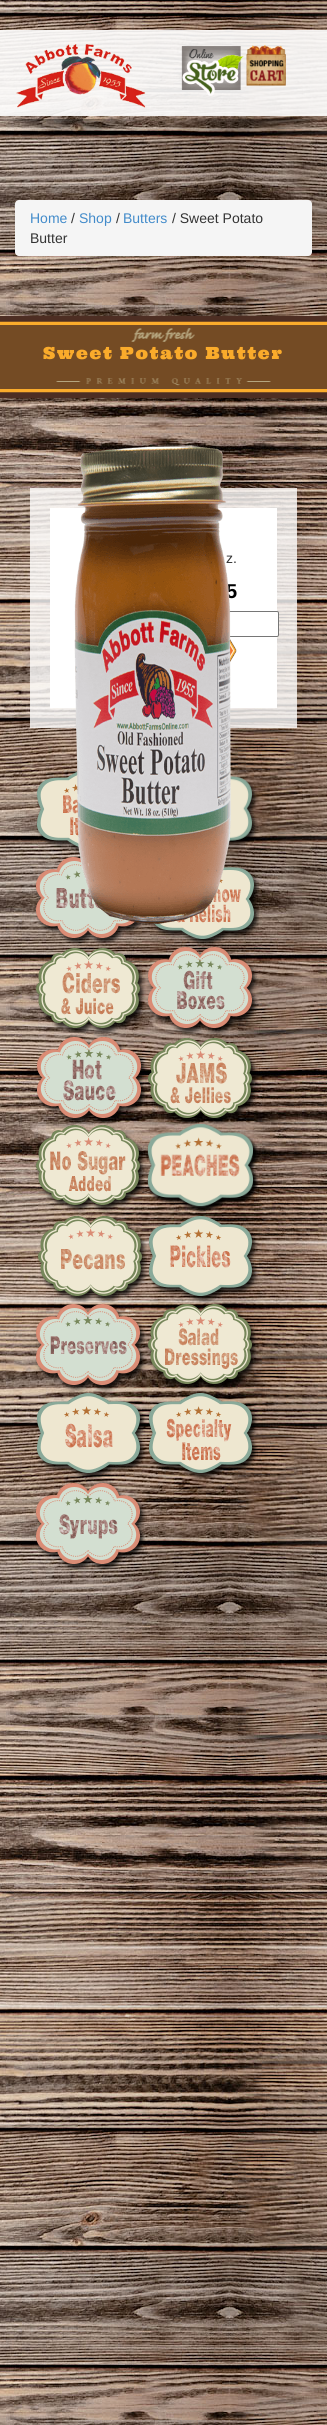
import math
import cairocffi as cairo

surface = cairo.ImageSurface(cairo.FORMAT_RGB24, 327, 2425)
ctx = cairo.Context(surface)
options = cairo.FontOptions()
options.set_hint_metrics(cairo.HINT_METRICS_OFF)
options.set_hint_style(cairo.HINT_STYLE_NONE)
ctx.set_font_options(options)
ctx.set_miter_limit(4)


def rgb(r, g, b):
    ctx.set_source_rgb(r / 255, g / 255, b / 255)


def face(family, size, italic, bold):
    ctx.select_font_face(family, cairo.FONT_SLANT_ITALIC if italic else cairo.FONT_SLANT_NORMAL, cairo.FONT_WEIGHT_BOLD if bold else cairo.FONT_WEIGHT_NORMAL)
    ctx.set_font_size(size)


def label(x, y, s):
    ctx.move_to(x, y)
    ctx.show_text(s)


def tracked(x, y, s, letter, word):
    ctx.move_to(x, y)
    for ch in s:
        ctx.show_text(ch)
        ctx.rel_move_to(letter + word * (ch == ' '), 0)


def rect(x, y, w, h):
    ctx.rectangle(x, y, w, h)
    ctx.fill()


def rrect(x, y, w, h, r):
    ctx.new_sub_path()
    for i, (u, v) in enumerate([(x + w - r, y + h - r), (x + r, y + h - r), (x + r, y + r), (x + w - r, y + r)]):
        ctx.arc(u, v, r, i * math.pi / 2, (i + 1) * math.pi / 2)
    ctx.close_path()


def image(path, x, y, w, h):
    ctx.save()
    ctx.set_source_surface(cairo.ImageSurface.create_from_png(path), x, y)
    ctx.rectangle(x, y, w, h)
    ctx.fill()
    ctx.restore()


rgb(255, 255, 255)
ctx.paint()
image('image0.png', 0, 0, 327, 2425)
image('image1.png', 0, 119, 322, 28)
ctx.set_source_rgba(1, 1, 1, 0.9)
rect(0, 30, 327, 86)
image('image2.png', 16, 44, 130, 64)
image('image3.png', 181, 46, 63, 50)
image('image4.png', 246, 45, 40, 41)
rgb(245, 245, 245)
rrect(15, 200, 297, 56, 4)
ctx.fill()
face('Liberation Sans', 14, 0, 0)
rgb(66, 139, 202)
label(30, 223, 'Home')
rgb(51, 51, 51)
label(71, 223, '/')
rgb(66, 139, 202)
label(79, 223, 'Shop')
rgb(51, 51, 51)
label(116, 223, '/')
rgb(66, 139, 202)
label(123, 223, 'Butters')
rgb(51, 51, 51)
label(172, 223, '/ Sweet Potato')
label(30, 243, 'Butter')
image('image5.png', 0, 316, 327, 82)
face('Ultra', 16.75, 0, 0)
rgb(250, 171, 43)
tracked(43, 359, 'Sweet Potato Butter', 1.7, 0)
ctx.set_source_rgba(1, 1, 1, 0.8)
rect(30, 488, 267, 240)
rgb(255, 255, 255)
rect(50, 508, 227, 200)
face('Liberation Sans', 14, 0, 0)
rgb(51, 51, 51)
label(226, 563, 'z.')
face('Liberation Sans', 20, 0, 1)
rgb(0, 0, 0)
label(226, 598, '5')
rgb(255, 255, 255)
rrect(90.5, 611.5, 188, 25, 1.5)
ctx.fill_preserve()
rgb(118, 118, 118)
ctx.set_line_width(1)
ctx.stroke()
image('image7.png', 230, 639, 7, 23)
image('image8.png', 36, 771, 44, 83)
image('image9.png', 228, 776, 31, 72)
image('image10.png', 35, 857, 110, 88)
image('image11.png', 151, 857, 108, 88)
image('image6.png', 74, 445, 157, 479)
image('image12.png', 36, 948, 110, 85)
image('image13.png', 147, 947, 112, 87)
image('image14.png', 36, 1035, 111, 89)
image('image15.png', 148, 1036, 110, 88)
image('image16.png', 35, 1125, 111, 88)
image('image17.png', 147, 1124, 112, 89)
image('image18.png', 37, 1213, 110, 89)
image('image19.png', 148, 1216, 111, 86)
image('image20.png', 35, 1304, 112, 87)
image('image21.png', 148, 1304, 110, 86)
image('image22.png', 36, 1391, 111, 89)
image('image23.png', 148, 1393, 111, 87)
image('image24.png', 35, 1480, 112, 89)
surface.write_to_png('render.png')
